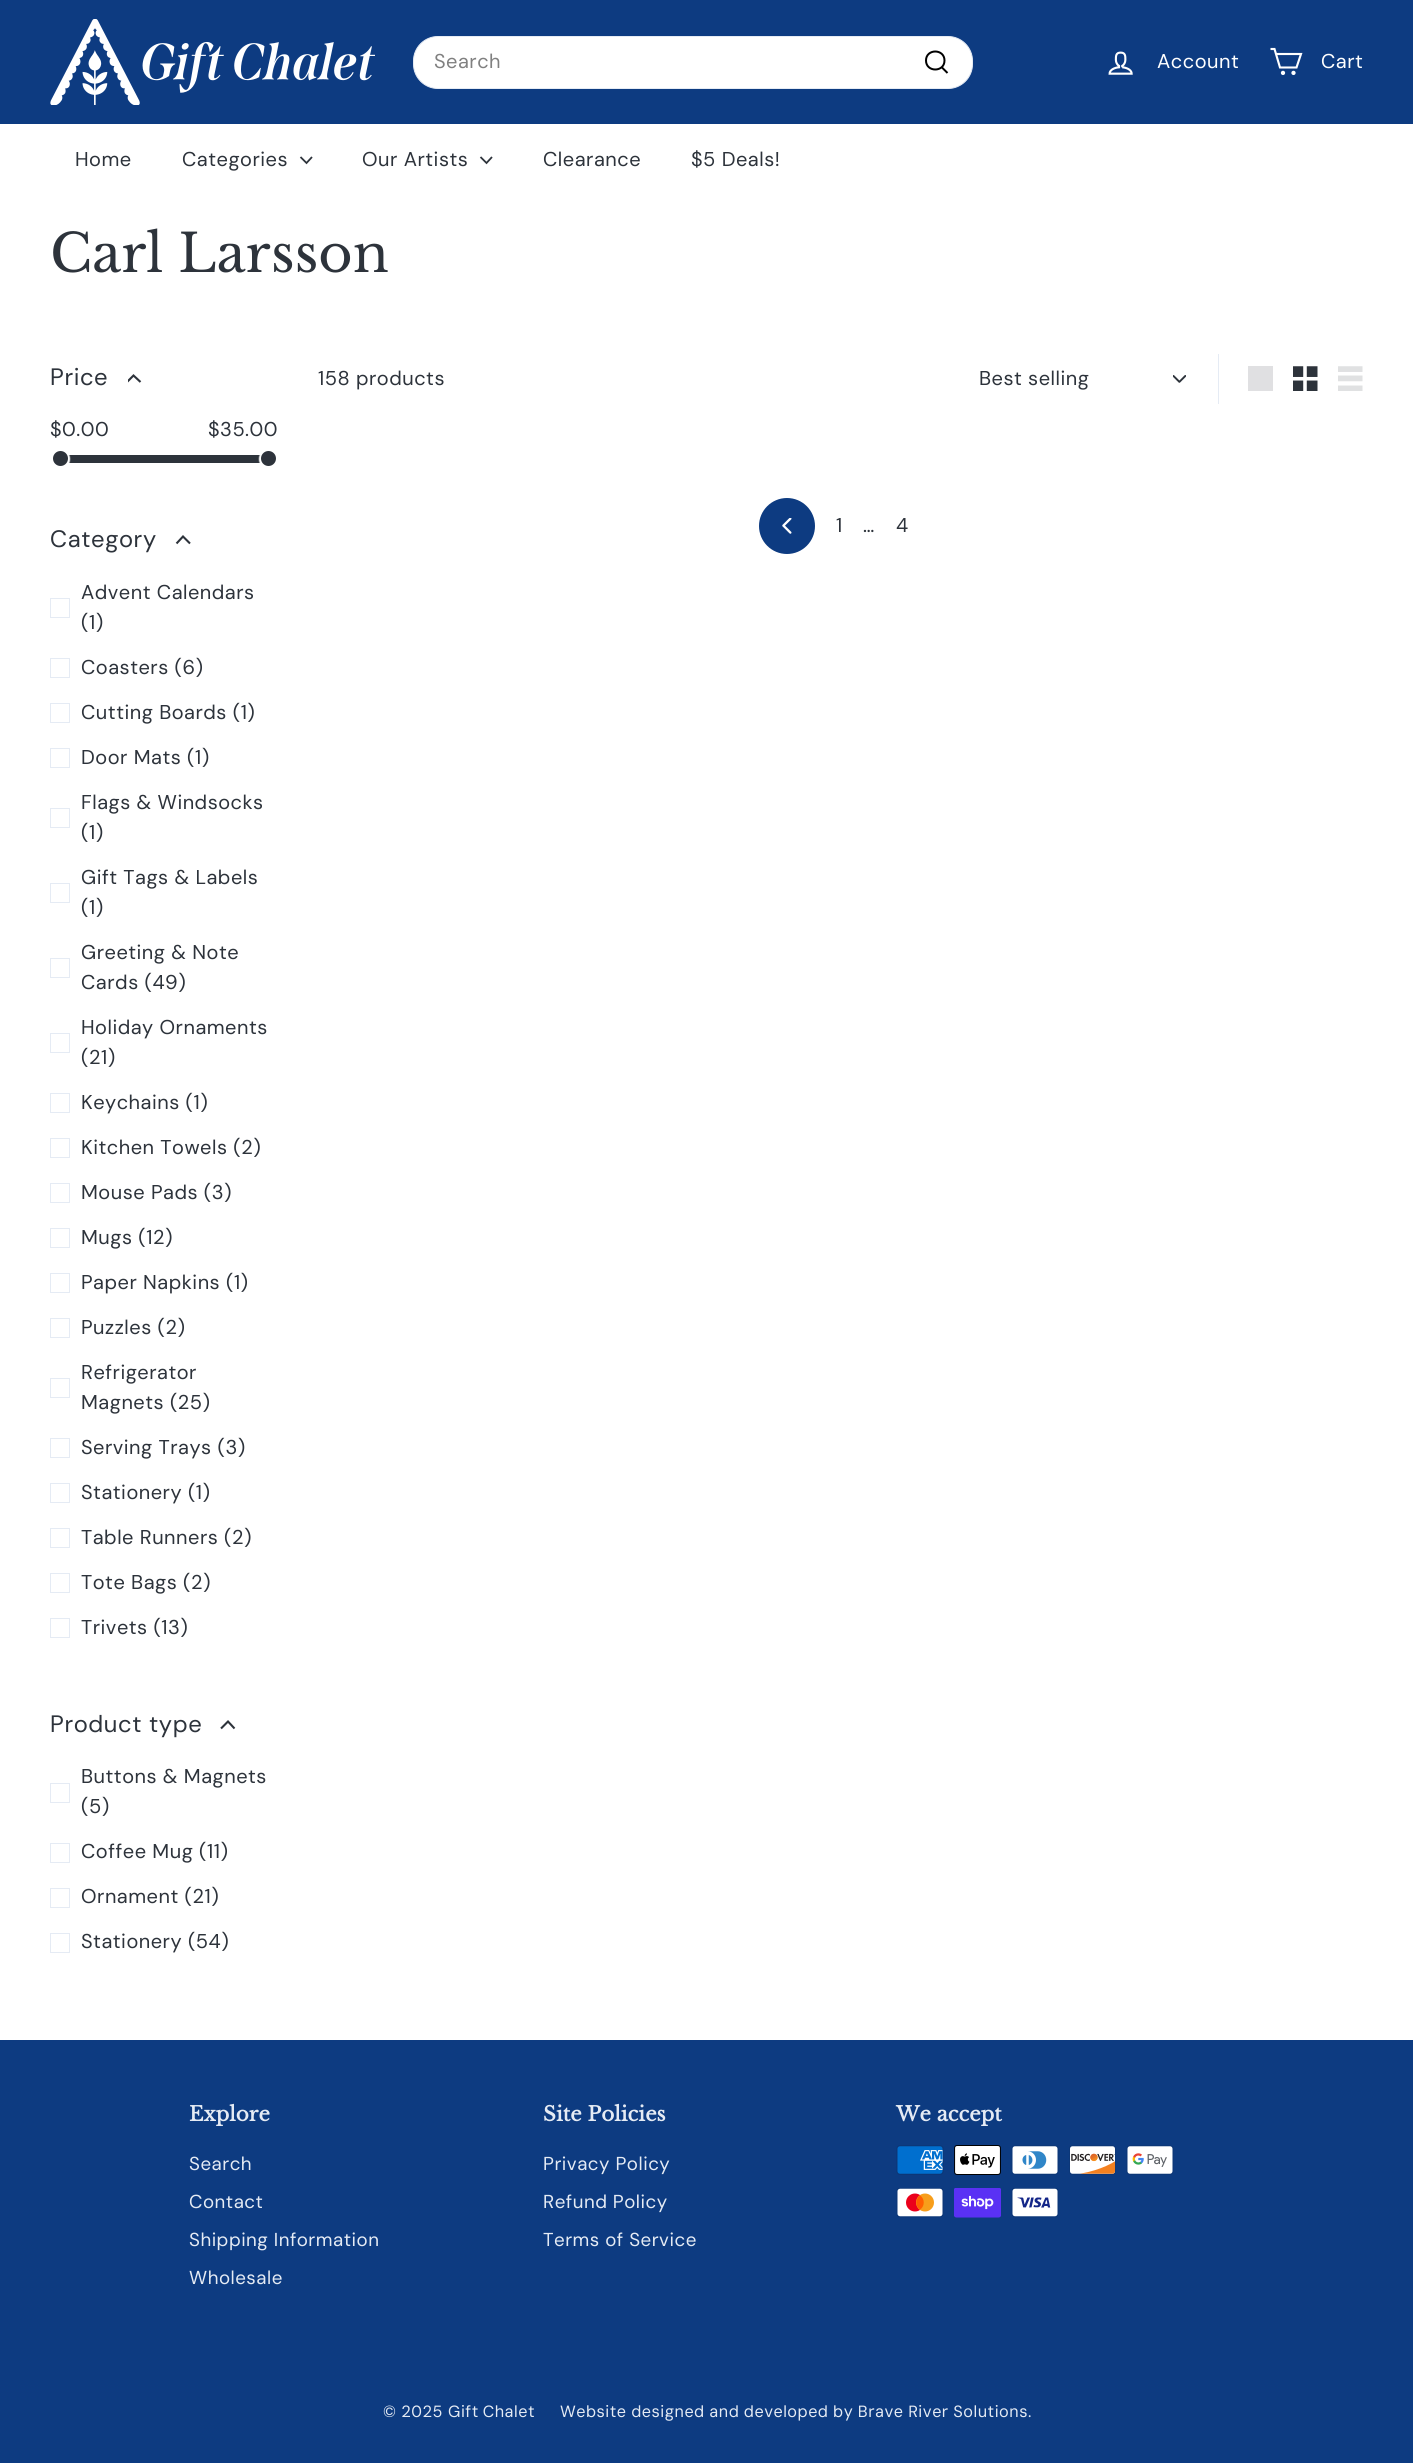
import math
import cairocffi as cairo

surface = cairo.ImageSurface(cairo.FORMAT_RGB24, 1413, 2463)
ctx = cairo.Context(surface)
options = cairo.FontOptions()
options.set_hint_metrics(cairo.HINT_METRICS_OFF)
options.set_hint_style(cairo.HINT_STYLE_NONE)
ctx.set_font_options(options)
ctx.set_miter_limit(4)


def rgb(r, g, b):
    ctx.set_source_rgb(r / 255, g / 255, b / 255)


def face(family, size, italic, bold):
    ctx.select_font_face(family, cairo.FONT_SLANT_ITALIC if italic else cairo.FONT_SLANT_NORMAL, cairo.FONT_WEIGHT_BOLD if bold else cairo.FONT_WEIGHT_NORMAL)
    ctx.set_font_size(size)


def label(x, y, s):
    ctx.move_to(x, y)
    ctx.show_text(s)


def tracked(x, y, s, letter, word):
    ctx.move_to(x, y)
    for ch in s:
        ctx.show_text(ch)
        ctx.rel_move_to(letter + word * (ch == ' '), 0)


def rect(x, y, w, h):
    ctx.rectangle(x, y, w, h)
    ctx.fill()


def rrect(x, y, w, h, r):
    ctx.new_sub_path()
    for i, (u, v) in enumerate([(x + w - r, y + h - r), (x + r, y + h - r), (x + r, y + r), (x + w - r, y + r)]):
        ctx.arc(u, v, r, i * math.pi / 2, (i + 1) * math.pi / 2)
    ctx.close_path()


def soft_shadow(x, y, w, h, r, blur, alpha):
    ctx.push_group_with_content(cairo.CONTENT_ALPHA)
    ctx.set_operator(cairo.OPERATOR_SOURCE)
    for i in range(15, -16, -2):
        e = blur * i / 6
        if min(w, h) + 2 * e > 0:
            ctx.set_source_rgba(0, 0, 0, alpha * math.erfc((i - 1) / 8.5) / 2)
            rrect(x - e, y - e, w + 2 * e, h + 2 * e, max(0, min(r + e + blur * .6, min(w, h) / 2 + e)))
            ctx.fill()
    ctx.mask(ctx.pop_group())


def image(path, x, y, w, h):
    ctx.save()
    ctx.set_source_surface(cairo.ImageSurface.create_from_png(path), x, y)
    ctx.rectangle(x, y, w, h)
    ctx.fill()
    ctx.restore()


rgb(255, 255, 255)
ctx.paint()
rgb(13, 59, 129)
rect(0, 0, 1413, 124)
image('image0.png', 50, 19, 325, 86)
rgb(255, 255, 255)
rrect(413.5, 36.5, 559, 52, 24.5)
ctx.fill_preserve()
rgb(229, 235, 244)
ctx.set_line_width(1)
ctx.stroke()
face('DM Sans', 20, 0, 0)
rgb(128, 128, 128)
tracked(434, 68, 'Search', 0.5, 0)
ctx.new_path()
ctx.move_to(944.5, 60.5)
ctx.curve_to(944.5, 72.5, 926, 72.5, 926, 60.5)
ctx.curve_to(926, 48.5, 944.5, 48.5, 944.5, 60.5)
ctx.move_to(947.5, 73)
ctx.line_to(941.5, 67)
rgb(0, 0, 0)
ctx.set_line_width(2)
ctx.stroke()
image('image1.png', 1108, 51, 25, 24)
rgb(255, 255, 255)
tracked(1157, 68, 'Account', 0.5, 0)
ctx.new_path()
ctx.move_to(1276, 54)
ctx.line_to(1301, 54)
ctx.line_to(1296.5, 67.5)
ctx.line_to(1280, 67.5)
ctx.line_to(1274.5, 49)
ctx.line_to(1270.5, 49)
ctx.set_line_width(2.1)
ctx.stroke()
ctx.arc(1283, 72.9, 1.1, 0, 2 * math.pi)
ctx.stroke()
ctx.arc(1293.5, 72.9, 1.1, 0, 2 * math.pi)
ctx.stroke()
tracked(1321, 68, 'Cart', 0.5, 0)
rgb(45, 51, 59)
tracked(75, 166, 'Home', 0.5, 0)
tracked(182, 166, 'Categories', 0.5, 0)
ctx.new_path()
ctx.move_to(300.5, 157)
ctx.line_to(306.5, 163)
ctx.line_to(312, 157)
ctx.set_line_width(1.8)
ctx.stroke()
tracked(362, 166, 'Our Artists', 0.5, 0)
ctx.new_path()
ctx.move_to(480.5, 157)
ctx.line_to(486.5, 163)
ctx.line_to(492, 157)
ctx.stroke()
tracked(543, 166, 'Clearance', 0.5, 0)
tracked(691, 166, '$5 Deals!', 0.5, 0)
face('Libre Baskerville', 52.5, 0, 0)
label(50, 272, 'Carl Larsson')
face('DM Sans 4', 23.75, 0, 0)
tracked(50, 385, 'Price', 0.6, 0)
ctx.save()
ctx.rectangle(128, 370, 15, 15)
ctx.clip()
ctx.new_path()
ctx.move_to(140.5, 382)
ctx.line_to(133.5, 375.5)
ctx.line_to(127, 382)
ctx.set_line_width(2.1)
ctx.stroke()
ctx.restore()
face('DM Sans', 20, 0, 0)
tracked(50, 436, '$0.00', 0.5, 0)
tracked(208, 436, '$35.00', 0.5, 0)
rect(60, 455, 209, 8)
rgb(255, 255, 255)
soft_shadow(50, 449, 20, 20, 10, 0.5, 1)
rgb(45, 51, 59)
ctx.arc(60.5, 458.5, 7.5, 0, 2 * math.pi)
ctx.fill()
rgb(255, 255, 255)
soft_shadow(259, 449, 20, 20, 10, 0.5, 1)
rgb(45, 51, 59)
ctx.arc(268.5, 458.5, 7.5, 0, 2 * math.pi)
ctx.fill()
face('DM Sans 4', 23.75, 0, 0)
tracked(50, 547, 'Category', 0.6, 0)
ctx.new_path()
ctx.move_to(190, 543.5)
ctx.line_to(183, 536.5)
ctx.line_to(176.5, 543.5)
ctx.set_line_width(2.1)
ctx.stroke()
ctx.rectangle(50.5, 598.5, 19, 19)
rgb(229, 235, 244)
ctx.set_line_width(1)
ctx.stroke()
face('DM Sans', 20, 0, 0)
rgb(45, 51, 59)
tracked(81, 599, 'Advent Calendars', 0.5, 0)
tracked(81, 629, '(1)', 0.5, 0)
ctx.rectangle(50.5, 658.5, 19, 19)
rgb(229, 235, 244)
ctx.stroke()
rgb(45, 51, 59)
tracked(81, 674, 'Coasters (6)', 0.5, 0)
ctx.rectangle(50.5, 703.5, 19, 19)
rgb(229, 235, 244)
ctx.stroke()
rgb(45, 51, 59)
tracked(81, 719, 'Cutting Boards (1)', 0.5, 0)
ctx.rectangle(50.5, 748.5, 19, 19)
rgb(229, 235, 244)
ctx.stroke()
rgb(45, 51, 59)
tracked(81, 764, 'Door Mats (1)', 0.5, 0)
ctx.rectangle(50.5, 808.5, 19, 19)
rgb(229, 235, 244)
ctx.stroke()
rgb(45, 51, 59)
tracked(81, 809, 'Flags & Windsocks', 0.5, 0)
tracked(81, 839, '(1)', 0.5, 0)
ctx.rectangle(50.5, 883.5, 19, 19)
rgb(229, 235, 244)
ctx.stroke()
rgb(45, 51, 59)
tracked(81, 884, 'Gift Tags & Labels', 0.5, 0)
tracked(81, 914, '(1)', 0.5, 0)
ctx.rectangle(50.5, 958.5, 19, 19)
rgb(229, 235, 244)
ctx.stroke()
rgb(45, 51, 59)
tracked(81, 959, 'Greeting & Note', 0.5, 0)
tracked(81, 989, 'Cards (49)', 0.5, 0)
ctx.rectangle(50.5, 1033.5, 19, 19)
rgb(229, 235, 244)
ctx.stroke()
rgb(45, 51, 59)
tracked(81, 1034, 'Holiday Ornaments', 0.5, 0)
tracked(81, 1064, '(21)', 0.5, 0)
ctx.rectangle(50.5, 1093.5, 19, 19)
rgb(229, 235, 244)
ctx.stroke()
rgb(45, 51, 59)
tracked(81, 1109, 'Keychains (1)', 0.5, 0)
ctx.rectangle(50.5, 1138.5, 19, 19)
rgb(229, 235, 244)
ctx.stroke()
rgb(45, 51, 59)
tracked(81, 1154, 'Kitchen Towels (2)', 0.5, 0)
ctx.rectangle(50.5, 1183.5, 19, 19)
rgb(229, 235, 244)
ctx.stroke()
rgb(45, 51, 59)
tracked(81, 1199, 'Mouse Pads (3)', 0.5, 0)
ctx.rectangle(50.5, 1228.5, 19, 19)
rgb(229, 235, 244)
ctx.stroke()
rgb(45, 51, 59)
tracked(81, 1244, 'Mugs (12)', 0.5, 0)
ctx.rectangle(50.5, 1273.5, 19, 19)
rgb(229, 235, 244)
ctx.stroke()
rgb(45, 51, 59)
tracked(81, 1289, 'Paper Napkins (1)', 0.5, 0)
ctx.rectangle(50.5, 1318.5, 19, 19)
rgb(229, 235, 244)
ctx.stroke()
rgb(45, 51, 59)
tracked(81, 1334, 'Puzzles (2)', 0.5, 0)
ctx.rectangle(50.5, 1378.5, 19, 19)
rgb(229, 235, 244)
ctx.stroke()
rgb(45, 51, 59)
tracked(81, 1379, 'Refrigerator', 0.5, 0)
tracked(81, 1409, 'Magnets (25)', 0.5, 0)
ctx.rectangle(50.5, 1438.5, 19, 19)
rgb(229, 235, 244)
ctx.stroke()
rgb(45, 51, 59)
tracked(81, 1454, 'Serving Trays (3)', 0.5, 0)
ctx.rectangle(50.5, 1483.5, 19, 19)
rgb(229, 235, 244)
ctx.stroke()
rgb(45, 51, 59)
tracked(81, 1499, 'Stationery (1)', 0.5, 0)
ctx.rectangle(50.5, 1528.5, 19, 19)
rgb(229, 235, 244)
ctx.stroke()
rgb(45, 51, 59)
tracked(81, 1544, 'Table Runners (2)', 0.5, 0)
ctx.rectangle(50.5, 1573.5, 19, 19)
rgb(229, 235, 244)
ctx.stroke()
rgb(45, 51, 59)
tracked(81, 1589, 'Tote Bags (2)', 0.5, 0)
ctx.rectangle(50.5, 1618.5, 19, 19)
rgb(229, 235, 244)
ctx.stroke()
rgb(45, 51, 59)
tracked(81, 1634, 'Trivets (13)', 0.5, 0)
face('DM Sans 4', 23.75, 0, 0)
tracked(50, 1732, 'Product type', 0.6, 0)
ctx.new_path()
ctx.move_to(234.5, 1728.5)
ctx.line_to(228, 1721.5)
ctx.line_to(221, 1728.5)
ctx.set_line_width(2.1)
ctx.stroke()
ctx.rectangle(50.5, 1783.5, 19, 19)
rgb(229, 235, 244)
ctx.set_line_width(1)
ctx.stroke()
face('DM Sans', 20, 0, 0)
rgb(45, 51, 59)
tracked(81, 1783, 'Buttons & Magnets', 0.5, 0)
tracked(81, 1813, '(5)', 0.5, 0)
ctx.rectangle(50.5, 1843.5, 19, 19)
rgb(229, 235, 244)
ctx.stroke()
rgb(45, 51, 59)
tracked(81, 1858, 'Coffee Mug (11)', 0.5, 0)
ctx.rectangle(50.5, 1888.5, 19, 19)
rgb(229, 235, 244)
ctx.stroke()
rgb(45, 51, 59)
tracked(81, 1903, 'Ornament (21)', 0.5, 0)
ctx.rectangle(50.5, 1933.5, 19, 19)
rgb(229, 235, 244)
ctx.stroke()
rgb(45, 51, 59)
tracked(81, 1948, 'Stationery (54)', 0.5, 0)
tracked(318, 385, '158 products', 0.5, 0)
rgb(229, 235, 244)
rect(1218, 354, 1, 50)
image('image2.png', 1173, 375, 13, 8)
rgb(45, 51, 59)
tracked(979, 385, 'Best selling', 0.5, 0)
rgb(224, 224, 226)
rect(1248, 366, 25, 25)
image('image3.png', 1293, 366, 25, 25)
image('image4.png', 1338, 366, 25, 25)
rgb(13, 59, 129)
ctx.arc(787, 526, 28, 0, 2 * math.pi)
ctx.fill()
image('image5.png', 782, 518, 10, 16)
rgb(45, 51, 59)
tracked(836, 532, '1', 0.5, 0)
tracked(863, 532, '…', 0.5, 0)
tracked(896, 532, '4', 0.5, 0)
rgb(13, 59, 129)
rect(0, 2040, 1413, 423)
face('Libre Baskerville', 20, 0, 1)
rgb(229, 235, 244)
label(189, 2121, 'Explore')
face('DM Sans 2', 18.75, 0, 0)
tracked(189, 2170, 'Search', 0.5, 0)
tracked(189, 2208, 'Contact', 0.5, 0)
tracked(189, 2246, 'Shipping Information', 0.5, 0)
tracked(189, 2284, 'Wholesale', 0.5, 0)
face('Libre Baskerville', 20, 0, 1)
label(543, 2121, 'Site Policies')
face('DM Sans 2', 18.75, 0, 0)
tracked(543, 2170, 'Privacy Policy', 0.5, 0)
tracked(543, 2208, 'Refund Policy', 0.5, 0)
tracked(543, 2246, 'Terms of Service', 0.5, 0)
face('Libre Baskerville', 20, 0, 1)
label(896, 2121, 'We accept')
image('image6.png', 896, 2145, 48, 30)
image('image7.png', 954, 2145, 47, 30)
image('image8.png', 1011, 2145, 48, 30)
image('image9.png', 1069, 2145, 47, 30)
image('image10.png', 1126, 2145, 48, 30)
image('image11.png', 896, 2188, 48, 30)
image('image12.png', 954, 2188, 47, 30)
image('image13.png', 1011, 2188, 48, 30)
face('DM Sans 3', 16.25, 0, 0)
tracked(383, 2417, '© 2025', 0.5, 0)
tracked(448, 2417, 'Gift Chalet', 0.5, -1)
tracked(560, 2417, 'Website designed and developed by Brave River Solutions.', 0.5, -0.25)
surface.write_to_png('render.png')
